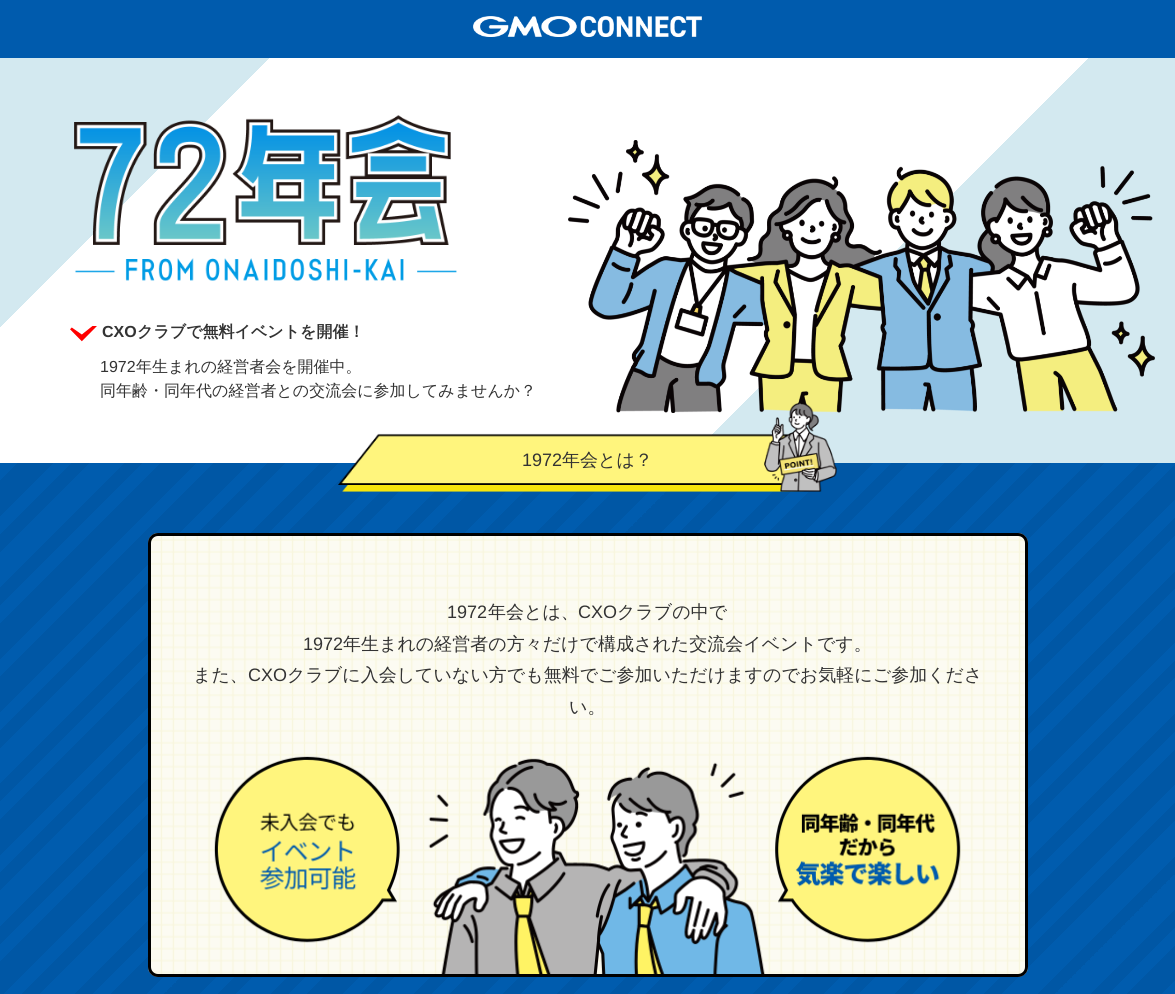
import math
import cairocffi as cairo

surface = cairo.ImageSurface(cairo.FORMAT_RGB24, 1175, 994)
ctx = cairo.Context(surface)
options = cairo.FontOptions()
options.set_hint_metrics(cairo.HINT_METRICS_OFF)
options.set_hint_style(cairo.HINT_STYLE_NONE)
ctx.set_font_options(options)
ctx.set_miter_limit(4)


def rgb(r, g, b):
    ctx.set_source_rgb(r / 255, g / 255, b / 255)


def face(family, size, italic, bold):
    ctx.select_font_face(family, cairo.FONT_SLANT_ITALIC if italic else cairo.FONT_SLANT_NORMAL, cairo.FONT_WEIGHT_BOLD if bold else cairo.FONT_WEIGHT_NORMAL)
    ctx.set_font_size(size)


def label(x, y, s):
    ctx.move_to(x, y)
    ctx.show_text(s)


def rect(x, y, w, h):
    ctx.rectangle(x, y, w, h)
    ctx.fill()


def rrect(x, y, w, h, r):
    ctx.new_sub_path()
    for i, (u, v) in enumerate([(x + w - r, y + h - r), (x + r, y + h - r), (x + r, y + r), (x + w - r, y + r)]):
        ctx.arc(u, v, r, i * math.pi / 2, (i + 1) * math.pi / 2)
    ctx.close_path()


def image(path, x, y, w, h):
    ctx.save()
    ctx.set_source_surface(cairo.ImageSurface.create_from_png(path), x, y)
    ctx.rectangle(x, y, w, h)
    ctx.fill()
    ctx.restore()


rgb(255, 255, 255)
ctx.paint()
gradient = cairo.LinearGradient(178, -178, 997, 641)
gradient.add_color_stop_rgba(0.2, 0.827, 0.914, 0.941, 1)
gradient.add_color_stop_rgba(0.2, 1, 1, 1, 1)
gradient.add_color_stop_rgba(0.7, 1, 1, 1, 1)
gradient.add_color_stop_rgba(0.7, 0.827, 0.914, 0.941, 1)
ctx.set_source(gradient)
rect(0, 58, 1175, 405)
rgb(0, 91, 173)
rect(0, 0, 1175, 58)
image('image0.png', 473, 16, 229, 21)
image('image1.png', 74, 115, 383, 166)
image('image2.png', 70, 326, 27, 16)
face('Liberation Sans', 16, 0, 1)
rgb(51, 51, 51)
label(102, 337, 'CXO')
face('WenQuanYi Zen Hei', 16, 0, 1)
label(137, 337, 'クラブで無料イベントを開催！')
face('Liberation Sans', 16, 0, 0)
label(100, 372, '1972')
face('WenQuanYi Zen Hei Medium', 16, 0, 0)
label(136, 372, '年生まれの経営者会を開催中。')
label(100, 396, '同年齢・同年代の経営者との交流会に参加してみませんか？')
image('image3.png', 568, 140, 587, 273)
gradient = cairo.LinearGradient(145, 318, 1036, 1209)
gradient.add_color_stop_rgba(0, 0, 0.361, 0.682, 1)
gradient.add_color_stop_rgba(0.01, 0, 0.361, 0.682, 1)
gradient.add_color_stop_rgba(0.01, 0, 0.341, 0.647, 1)
gradient.add_color_stop_rgba(0.02, 0, 0.341, 0.647, 1)
gradient.add_color_stop_rgba(0.02, 0, 0.361, 0.682, 1)
gradient.add_color_stop_rgba(0.02, 0, 0.341, 0.647, 1)
gradient.add_color_stop_rgba(0.03, 0, 0.341, 0.647, 1)
gradient.add_color_stop_rgba(0.03, 0, 0.361, 0.682, 1)
gradient.add_color_stop_rgba(0.04, 0, 0.361, 0.682, 1)
gradient.add_color_stop_rgba(0.04, 0, 0.341, 0.647, 1)
gradient.add_color_stop_rgba(0.05, 0, 0.341, 0.647, 1)
gradient.add_color_stop_rgba(0.05, 0, 0.361, 0.682, 1)
gradient.add_color_stop_rgba(0.06, 0, 0.361, 0.682, 1)
gradient.add_color_stop_rgba(0.06, 0, 0.341, 0.647, 1)
gradient.add_color_stop_rgba(0.06, 0, 0.361, 0.682, 1)
gradient.add_color_stop_rgba(0.07, 0, 0.361, 0.682, 1)
gradient.add_color_stop_rgba(0.07, 0, 0.341, 0.647, 1)
gradient.add_color_stop_rgba(0.08, 0, 0.341, 0.647, 1)
gradient.add_color_stop_rgba(0.08, 0, 0.361, 0.682, 1)
gradient.add_color_stop_rgba(0.09, 0, 0.361, 0.682, 1)
gradient.add_color_stop_rgba(0.09, 0, 0.341, 0.647, 1)
gradient.add_color_stop_rgba(0.1, 0, 0.341, 0.647, 1)
gradient.add_color_stop_rgba(0.1, 0, 0.361, 0.682, 1)
gradient.add_color_stop_rgba(0.1, 0, 0.341, 0.647, 1)
gradient.add_color_stop_rgba(0.11, 0, 0.341, 0.647, 1)
gradient.add_color_stop_rgba(0.11, 0, 0.361, 0.682, 1)
gradient.add_color_stop_rgba(0.12, 0, 0.361, 0.682, 1)
gradient.add_color_stop_rgba(0.12, 0, 0.341, 0.647, 1)
gradient.add_color_stop_rgba(0.13, 0, 0.341, 0.647, 1)
gradient.add_color_stop_rgba(0.13, 0, 0.361, 0.682, 1)
gradient.add_color_stop_rgba(0.13, 0, 0.341, 0.647, 1)
gradient.add_color_stop_rgba(0.14, 0, 0.341, 0.647, 1)
gradient.add_color_stop_rgba(0.14, 0, 0.361, 0.682, 1)
gradient.add_color_stop_rgba(0.15, 0, 0.361, 0.682, 1)
gradient.add_color_stop_rgba(0.15, 0, 0.341, 0.647, 1)
gradient.add_color_stop_rgba(0.16, 0, 0.341, 0.647, 1)
gradient.add_color_stop_rgba(0.16, 0, 0.361, 0.682, 1)
gradient.add_color_stop_rgba(0.17, 0, 0.361, 0.682, 1)
gradient.add_color_stop_rgba(0.17, 0, 0.341, 0.647, 1)
gradient.add_color_stop_rgba(0.17, 0, 0.361, 0.682, 1)
gradient.add_color_stop_rgba(0.18, 0, 0.361, 0.682, 1)
gradient.add_color_stop_rgba(0.18, 0, 0.341, 0.647, 1)
gradient.add_color_stop_rgba(0.19, 0, 0.341, 0.647, 1)
gradient.add_color_stop_rgba(0.19, 0, 0.361, 0.682, 1)
gradient.add_color_stop_rgba(0.2, 0, 0.361, 0.682, 1)
gradient.add_color_stop_rgba(0.2, 0, 0.341, 0.647, 1)
gradient.add_color_stop_rgba(0.21, 0, 0.341, 0.647, 1)
gradient.add_color_stop_rgba(0.21, 0, 0.361, 0.682, 1)
gradient.add_color_stop_rgba(0.21, 0, 0.341, 0.647, 1)
gradient.add_color_stop_rgba(0.22, 0, 0.341, 0.647, 1)
gradient.add_color_stop_rgba(0.22, 0, 0.361, 0.682, 1)
gradient.add_color_stop_rgba(0.23, 0, 0.361, 0.682, 1)
gradient.add_color_stop_rgba(0.23, 0, 0.341, 0.647, 1)
gradient.add_color_stop_rgba(0.24, 0, 0.341, 0.647, 1)
gradient.add_color_stop_rgba(0.24, 0, 0.361, 0.682, 1)
gradient.add_color_stop_rgba(0.25, 0, 0.361, 0.682, 1)
gradient.add_color_stop_rgba(0.25, 0, 0.341, 0.647, 1)
gradient.add_color_stop_rgba(0.25, 0, 0.361, 0.682, 1)
gradient.add_color_stop_rgba(0.26, 0, 0.361, 0.682, 1)
gradient.add_color_stop_rgba(0.26, 0, 0.341, 0.647, 1)
gradient.add_color_stop_rgba(0.27, 0, 0.341, 0.647, 1)
gradient.add_color_stop_rgba(0.27, 0, 0.361, 0.682, 1)
gradient.add_color_stop_rgba(0.28, 0, 0.361, 0.682, 1)
gradient.add_color_stop_rgba(0.28, 0, 0.341, 0.647, 1)
gradient.add_color_stop_rgba(0.29, 0, 0.341, 0.647, 1)
gradient.add_color_stop_rgba(0.29, 0, 0.361, 0.682, 1)
gradient.add_color_stop_rgba(0.29, 0, 0.341, 0.647, 1)
gradient.add_color_stop_rgba(0.3, 0, 0.341, 0.647, 1)
gradient.add_color_stop_rgba(0.3, 0, 0.361, 0.682, 1)
gradient.add_color_stop_rgba(0.31, 0, 0.361, 0.682, 1)
gradient.add_color_stop_rgba(0.31, 0, 0.341, 0.647, 1)
gradient.add_color_stop_rgba(0.32, 0, 0.341, 0.647, 1)
gradient.add_color_stop_rgba(0.32, 0, 0.361, 0.682, 1)
gradient.add_color_stop_rgba(0.33, 0, 0.361, 0.682, 1)
gradient.add_color_stop_rgba(0.33, 0, 0.341, 0.647, 1)
gradient.add_color_stop_rgba(0.33, 0, 0.361, 0.682, 1)
gradient.add_color_stop_rgba(0.34, 0, 0.361, 0.682, 1)
gradient.add_color_stop_rgba(0.34, 0, 0.341, 0.647, 1)
gradient.add_color_stop_rgba(0.35, 0, 0.341, 0.647, 1)
gradient.add_color_stop_rgba(0.35, 0, 0.361, 0.682, 1)
gradient.add_color_stop_rgba(0.36, 0, 0.361, 0.682, 1)
gradient.add_color_stop_rgba(0.36, 0, 0.341, 0.647, 1)
gradient.add_color_stop_rgba(0.37, 0, 0.341, 0.647, 1)
gradient.add_color_stop_rgba(0.37, 0, 0.361, 0.682, 1)
gradient.add_color_stop_rgba(0.37, 0, 0.341, 0.647, 1)
gradient.add_color_stop_rgba(0.38, 0, 0.341, 0.647, 1)
gradient.add_color_stop_rgba(0.38, 0, 0.361, 0.682, 1)
gradient.add_color_stop_rgba(0.39, 0, 0.361, 0.682, 1)
gradient.add_color_stop_rgba(0.39, 0, 0.341, 0.647, 1)
gradient.add_color_stop_rgba(0.4, 0, 0.341, 0.647, 1)
gradient.add_color_stop_rgba(0.4, 0, 0.361, 0.682, 1)
gradient.add_color_stop_rgba(0.4, 0, 0.341, 0.647, 1)
gradient.add_color_stop_rgba(0.41, 0, 0.341, 0.647, 1)
gradient.add_color_stop_rgba(0.41, 0, 0.361, 0.682, 1)
gradient.add_color_stop_rgba(0.42, 0, 0.361, 0.682, 1)
gradient.add_color_stop_rgba(0.42, 0, 0.341, 0.647, 1)
gradient.add_color_stop_rgba(0.43, 0, 0.341, 0.647, 1)
gradient.add_color_stop_rgba(0.43, 0, 0.361, 0.682, 1)
gradient.add_color_stop_rgba(0.44, 0, 0.361, 0.682, 1)
gradient.add_color_stop_rgba(0.44, 0, 0.341, 0.647, 1)
gradient.add_color_stop_rgba(0.44, 0, 0.361, 0.682, 1)
gradient.add_color_stop_rgba(0.45, 0, 0.361, 0.682, 1)
gradient.add_color_stop_rgba(0.45, 0, 0.341, 0.647, 1)
gradient.add_color_stop_rgba(0.46, 0, 0.341, 0.647, 1)
gradient.add_color_stop_rgba(0.46, 0, 0.361, 0.682, 1)
gradient.add_color_stop_rgba(0.47, 0, 0.361, 0.682, 1)
gradient.add_color_stop_rgba(0.47, 0, 0.341, 0.647, 1)
gradient.add_color_stop_rgba(0.48, 0, 0.341, 0.647, 1)
gradient.add_color_stop_rgba(0.48, 0, 0.361, 0.682, 1)
gradient.add_color_stop_rgba(0.48, 0, 0.341, 0.647, 1)
gradient.add_color_stop_rgba(0.49, 0, 0.341, 0.647, 1)
gradient.add_color_stop_rgba(0.49, 0, 0.361, 0.682, 1)
gradient.add_color_stop_rgba(0.5, 0, 0.361, 0.682, 1)
gradient.add_color_stop_rgba(0.5, 0, 0.341, 0.647, 1)
gradient.add_color_stop_rgba(0.51, 0, 0.341, 0.647, 1)
gradient.add_color_stop_rgba(0.51, 0, 0.361, 0.682, 1)
gradient.add_color_stop_rgba(0.52, 0, 0.361, 0.682, 1)
gradient.add_color_stop_rgba(0.52, 0, 0.341, 0.647, 1)
gradient.add_color_stop_rgba(0.52, 0, 0.361, 0.682, 1)
gradient.add_color_stop_rgba(0.53, 0, 0.361, 0.682, 1)
gradient.add_color_stop_rgba(0.53, 0, 0.341, 0.647, 1)
gradient.add_color_stop_rgba(0.54, 0, 0.341, 0.647, 1)
gradient.add_color_stop_rgba(0.54, 0, 0.361, 0.682, 1)
gradient.add_color_stop_rgba(0.55, 0, 0.361, 0.682, 1)
gradient.add_color_stop_rgba(0.55, 0, 0.341, 0.647, 1)
gradient.add_color_stop_rgba(0.56, 0, 0.341, 0.647, 1)
gradient.add_color_stop_rgba(0.56, 0, 0.361, 0.682, 1)
gradient.add_color_stop_rgba(0.56, 0, 0.341, 0.647, 1)
gradient.add_color_stop_rgba(0.57, 0, 0.341, 0.647, 1)
gradient.add_color_stop_rgba(0.57, 0, 0.361, 0.682, 1)
gradient.add_color_stop_rgba(0.58, 0, 0.361, 0.682, 1)
gradient.add_color_stop_rgba(0.58, 0, 0.341, 0.647, 1)
gradient.add_color_stop_rgba(0.59, 0, 0.341, 0.647, 1)
gradient.add_color_stop_rgba(0.59, 0, 0.361, 0.682, 1)
gradient.add_color_stop_rgba(0.6, 0, 0.361, 0.682, 1)
gradient.add_color_stop_rgba(0.6, 0, 0.341, 0.647, 1)
gradient.add_color_stop_rgba(0.6, 0, 0.361, 0.682, 1)
gradient.add_color_stop_rgba(0.61, 0, 0.361, 0.682, 1)
gradient.add_color_stop_rgba(0.61, 0, 0.341, 0.647, 1)
gradient.add_color_stop_rgba(0.62, 0, 0.341, 0.647, 1)
gradient.add_color_stop_rgba(0.62, 0, 0.361, 0.682, 1)
gradient.add_color_stop_rgba(0.63, 0, 0.361, 0.682, 1)
gradient.add_color_stop_rgba(0.63, 0, 0.341, 0.647, 1)
gradient.add_color_stop_rgba(0.63, 0, 0.361, 0.682, 1)
gradient.add_color_stop_rgba(0.64, 0, 0.361, 0.682, 1)
gradient.add_color_stop_rgba(0.64, 0, 0.341, 0.647, 1)
gradient.add_color_stop_rgba(0.65, 0, 0.341, 0.647, 1)
gradient.add_color_stop_rgba(0.65, 0, 0.361, 0.682, 1)
gradient.add_color_stop_rgba(0.66, 0, 0.361, 0.682, 1)
gradient.add_color_stop_rgba(0.66, 0, 0.341, 0.647, 1)
gradient.add_color_stop_rgba(0.67, 0, 0.341, 0.647, 1)
gradient.add_color_stop_rgba(0.67, 0, 0.361, 0.682, 1)
gradient.add_color_stop_rgba(0.67, 0, 0.341, 0.647, 1)
gradient.add_color_stop_rgba(0.68, 0, 0.341, 0.647, 1)
gradient.add_color_stop_rgba(0.68, 0, 0.361, 0.682, 1)
gradient.add_color_stop_rgba(0.69, 0, 0.361, 0.682, 1)
gradient.add_color_stop_rgba(0.69, 0, 0.341, 0.647, 1)
gradient.add_color_stop_rgba(0.7, 0, 0.341, 0.647, 1)
gradient.add_color_stop_rgba(0.7, 0, 0.361, 0.682, 1)
gradient.add_color_stop_rgba(0.71, 0, 0.361, 0.682, 1)
gradient.add_color_stop_rgba(0.71, 0, 0.341, 0.647, 1)
gradient.add_color_stop_rgba(0.71, 0, 0.361, 0.682, 1)
gradient.add_color_stop_rgba(0.72, 0, 0.361, 0.682, 1)
gradient.add_color_stop_rgba(0.72, 0, 0.341, 0.647, 1)
gradient.add_color_stop_rgba(0.73, 0, 0.341, 0.647, 1)
gradient.add_color_stop_rgba(0.73, 0, 0.361, 0.682, 1)
gradient.add_color_stop_rgba(0.74, 0, 0.361, 0.682, 1)
gradient.add_color_stop_rgba(0.74, 0, 0.341, 0.647, 1)
gradient.add_color_stop_rgba(0.75, 0, 0.341, 0.647, 1)
gradient.add_color_stop_rgba(0.75, 0, 0.361, 0.682, 1)
gradient.add_color_stop_rgba(0.75, 0, 0.341, 0.647, 1)
gradient.add_color_stop_rgba(0.76, 0, 0.341, 0.647, 1)
gradient.add_color_stop_rgba(0.76, 0, 0.361, 0.682, 1)
gradient.add_color_stop_rgba(0.77, 0, 0.361, 0.682, 1)
gradient.add_color_stop_rgba(0.77, 0, 0.341, 0.647, 1)
gradient.add_color_stop_rgba(0.78, 0, 0.341, 0.647, 1)
gradient.add_color_stop_rgba(0.78, 0, 0.361, 0.682, 1)
gradient.add_color_stop_rgba(0.79, 0, 0.361, 0.682, 1)
gradient.add_color_stop_rgba(0.79, 0, 0.341, 0.647, 1)
gradient.add_color_stop_rgba(0.79, 0, 0.361, 0.682, 1)
gradient.add_color_stop_rgba(0.8, 0, 0.361, 0.682, 1)
gradient.add_color_stop_rgba(0.8, 0, 0.341, 0.647, 1)
gradient.add_color_stop_rgba(0.81, 0, 0.341, 0.647, 1)
gradient.add_color_stop_rgba(0.81, 0, 0.361, 0.682, 1)
gradient.add_color_stop_rgba(0.82, 0, 0.361, 0.682, 1)
gradient.add_color_stop_rgba(0.82, 0, 0.341, 0.647, 1)
gradient.add_color_stop_rgba(0.83, 0, 0.341, 0.647, 1)
gradient.add_color_stop_rgba(0.83, 0, 0.361, 0.682, 1)
gradient.add_color_stop_rgba(0.83, 0, 0.341, 0.647, 1)
gradient.add_color_stop_rgba(0.84, 0, 0.341, 0.647, 1)
gradient.add_color_stop_rgba(0.84, 0, 0.361, 0.682, 1)
gradient.add_color_stop_rgba(0.85, 0, 0.361, 0.682, 1)
gradient.add_color_stop_rgba(0.85, 0, 0.341, 0.647, 1)
gradient.add_color_stop_rgba(0.86, 0, 0.341, 0.647, 1)
gradient.add_color_stop_rgba(0.86, 0, 0.361, 0.682, 1)
gradient.add_color_stop_rgba(0.87, 0, 0.361, 0.682, 1)
gradient.add_color_stop_rgba(0.87, 0, 0.341, 0.647, 1)
gradient.add_color_stop_rgba(0.87, 0, 0.361, 0.682, 1)
gradient.add_color_stop_rgba(0.88, 0, 0.361, 0.682, 1)
gradient.add_color_stop_rgba(0.88, 0, 0.341, 0.647, 1)
gradient.add_color_stop_rgba(0.89, 0, 0.341, 0.647, 1)
gradient.add_color_stop_rgba(0.89, 0, 0.361, 0.682, 1)
gradient.add_color_stop_rgba(0.9, 0, 0.361, 0.682, 1)
gradient.add_color_stop_rgba(0.9, 0, 0.341, 0.647, 1)
gradient.add_color_stop_rgba(0.9, 0, 0.361, 0.682, 1)
gradient.add_color_stop_rgba(0.91, 0, 0.361, 0.682, 1)
gradient.add_color_stop_rgba(0.91, 0, 0.341, 0.647, 1)
gradient.add_color_stop_rgba(0.92, 0, 0.341, 0.647, 1)
gradient.add_color_stop_rgba(0.92, 0, 0.361, 0.682, 1)
gradient.add_color_stop_rgba(0.93, 0, 0.361, 0.682, 1)
gradient.add_color_stop_rgba(0.93, 0, 0.341, 0.647, 1)
gradient.add_color_stop_rgba(0.94, 0, 0.341, 0.647, 1)
gradient.add_color_stop_rgba(0.94, 0, 0.361, 0.682, 1)
gradient.add_color_stop_rgba(0.94, 0, 0.341, 0.647, 1)
gradient.add_color_stop_rgba(0.95, 0, 0.341, 0.647, 1)
gradient.add_color_stop_rgba(0.95, 0, 0.361, 0.682, 1)
gradient.add_color_stop_rgba(0.96, 0, 0.361, 0.682, 1)
gradient.add_color_stop_rgba(0.96, 0, 0.341, 0.647, 1)
gradient.add_color_stop_rgba(0.97, 0, 0.341, 0.647, 1)
gradient.add_color_stop_rgba(0.97, 0, 0.361, 0.682, 1)
gradient.add_color_stop_rgba(0.98, 0, 0.361, 0.682, 1)
gradient.add_color_stop_rgba(0.98, 0, 0.341, 0.647, 1)
gradient.add_color_stop_rgba(0.98, 0, 0.361, 0.682, 1)
gradient.add_color_stop_rgba(0.99, 0, 0.361, 0.682, 1)
gradient.add_color_stop_rgba(0.99, 0, 0.341, 0.647, 1)
gradient.add_color_stop_rgba(1, 0, 0.341, 0.647, 1)
ctx.set_source(gradient)
rect(0, 463, 1175, 531)
image('image4.png', 338, 403, 499, 89)
face('Liberation Sans', 18, 0, 0)
rgb(51, 51, 51)
label(522, 466, '1972')
face('WenQuanYi Zen Hei Medium', 18, 0, 0)
label(562, 466, '年会とは？')
image('image5.png', 148, 533, 880, 444)
rrect(149.5, 534.5, 877, 441, 8.5)
rgb(0, 0, 0)
ctx.set_line_width(3)
ctx.stroke()
face('Liberation Sans', 18, 0, 0)
rgb(51, 51, 51)
label(447, 618, '1972')
face('WenQuanYi Zen Hei Medium', 18, 0, 0)
label(488, 618, '年会とは、')
face('Liberation Sans', 18, 0, 0)
label(578, 618, 'CXO')
face('WenQuanYi Zen Hei Medium', 18, 0, 0)
label(617, 618, 'クラブの中で')
face('Liberation Sans', 18, 0, 0)
label(303, 650, '1972')
face('WenQuanYi Zen Hei Medium', 18, 0, 0)
label(343, 650, '年生まれの経営者の方々だけで構成された交流会イベントです。')
label(193, 681, 'また、')
face('Liberation Sans', 18, 0, 0)
label(248, 681, 'CXO')
face('WenQuanYi Zen Hei Medium', 18, 0, 0)
label(287, 681, 'クラブに入会していない方でも無料でご参加いただけますのでお気軽にご参加くださ')
label(569, 713, 'い。')
image('image6.png', 214, 756, 747, 218)
surface.write_to_png('render.png')
